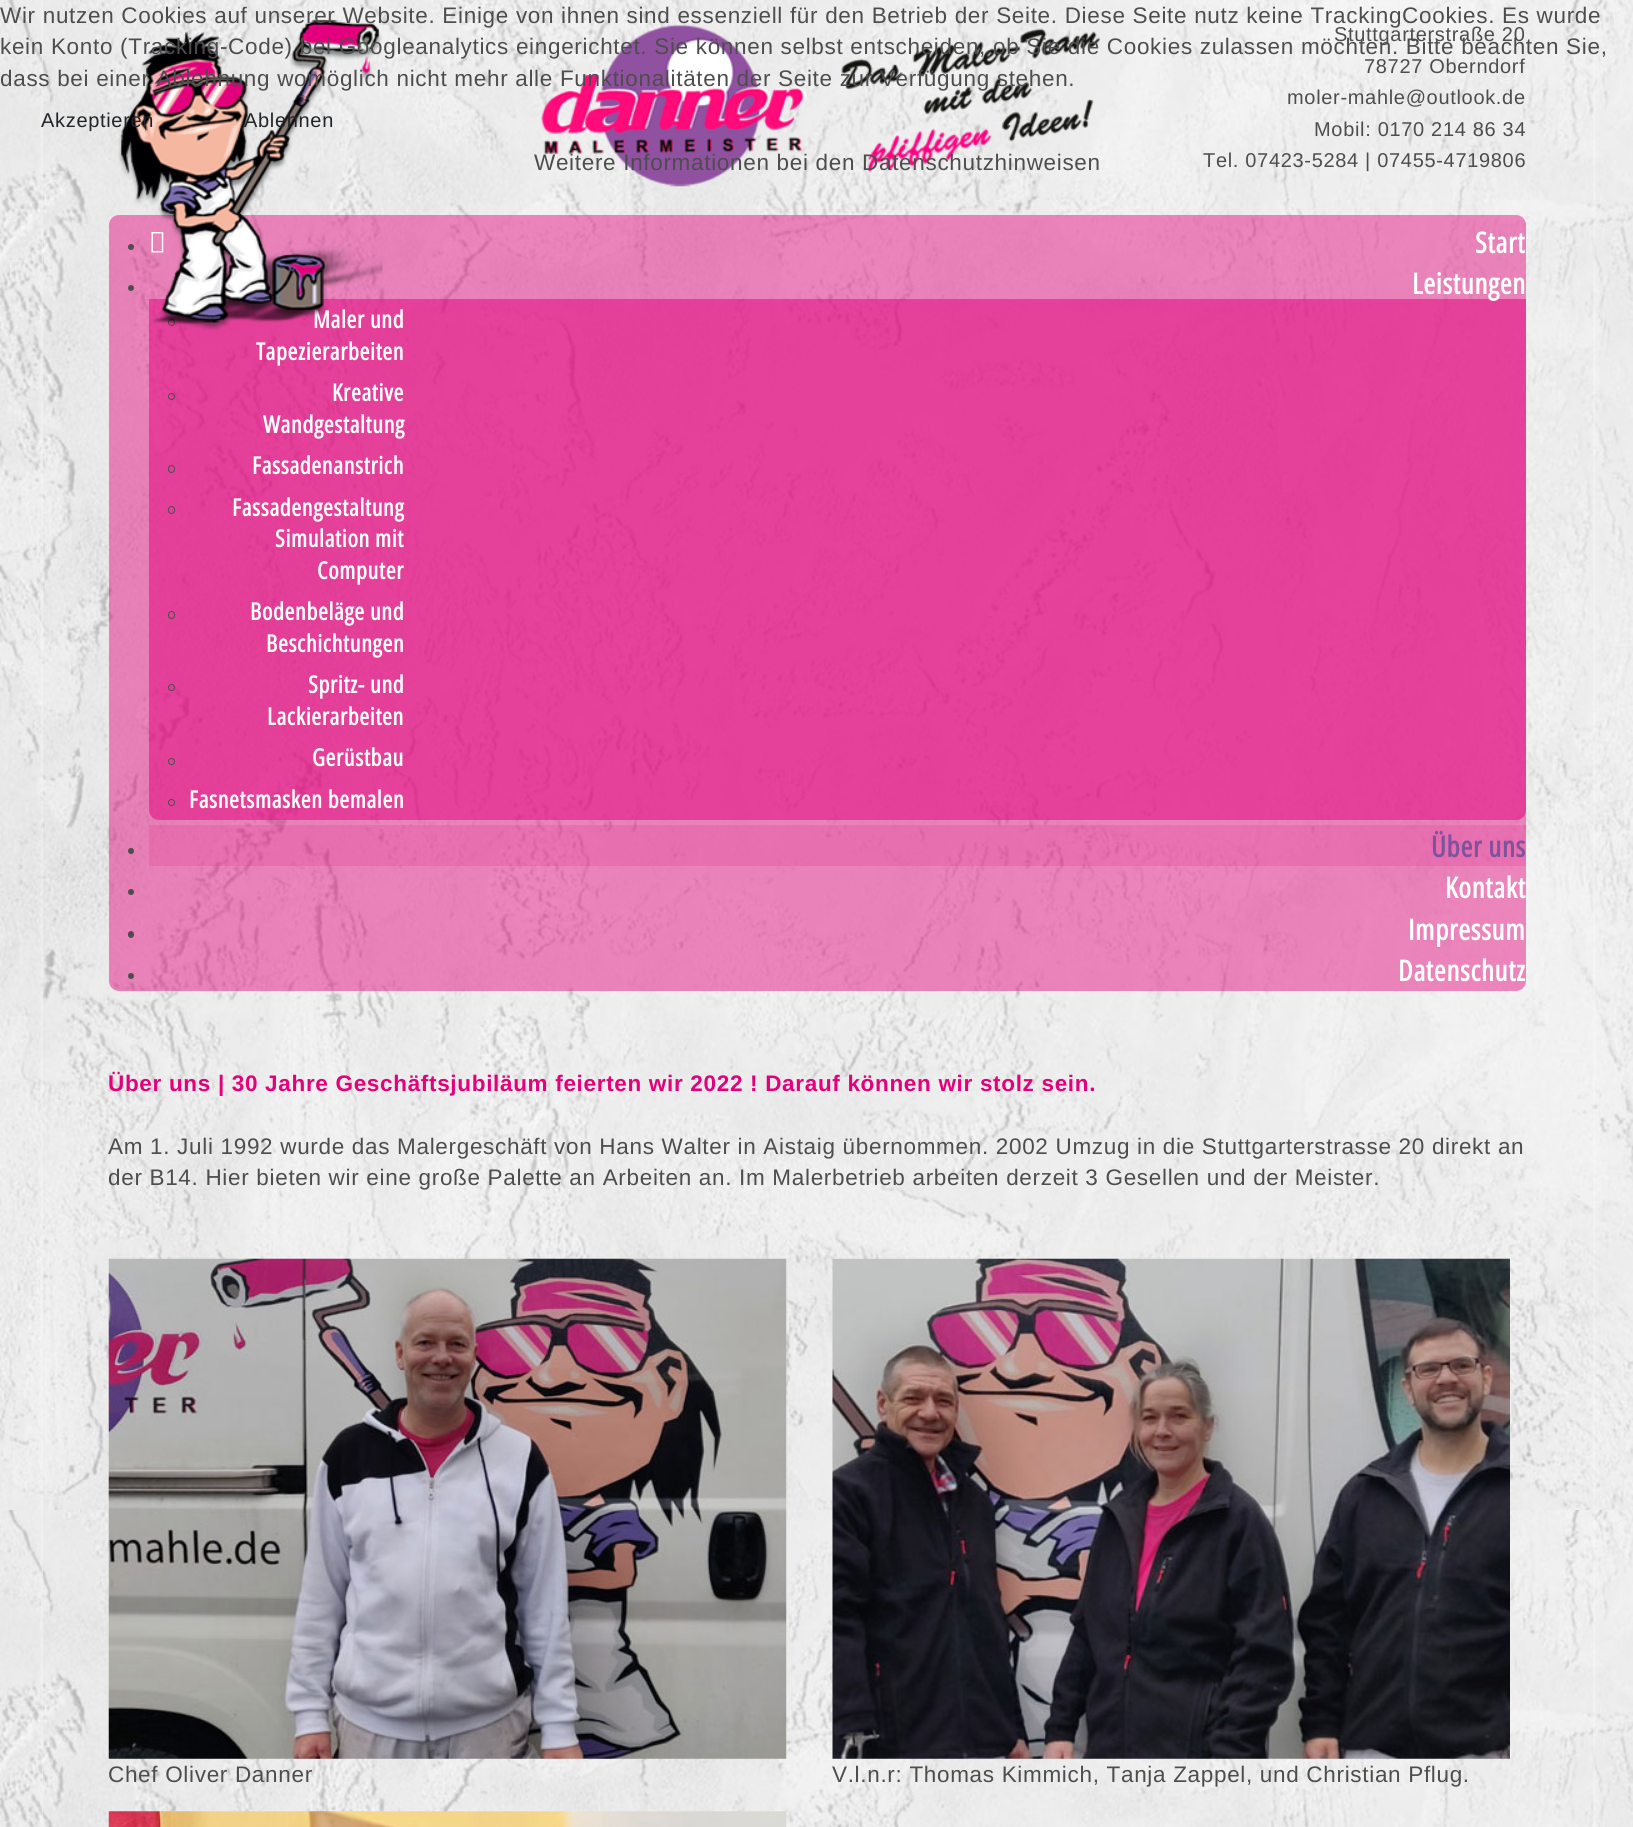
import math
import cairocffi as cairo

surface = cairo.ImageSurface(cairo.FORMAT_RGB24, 1633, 1827)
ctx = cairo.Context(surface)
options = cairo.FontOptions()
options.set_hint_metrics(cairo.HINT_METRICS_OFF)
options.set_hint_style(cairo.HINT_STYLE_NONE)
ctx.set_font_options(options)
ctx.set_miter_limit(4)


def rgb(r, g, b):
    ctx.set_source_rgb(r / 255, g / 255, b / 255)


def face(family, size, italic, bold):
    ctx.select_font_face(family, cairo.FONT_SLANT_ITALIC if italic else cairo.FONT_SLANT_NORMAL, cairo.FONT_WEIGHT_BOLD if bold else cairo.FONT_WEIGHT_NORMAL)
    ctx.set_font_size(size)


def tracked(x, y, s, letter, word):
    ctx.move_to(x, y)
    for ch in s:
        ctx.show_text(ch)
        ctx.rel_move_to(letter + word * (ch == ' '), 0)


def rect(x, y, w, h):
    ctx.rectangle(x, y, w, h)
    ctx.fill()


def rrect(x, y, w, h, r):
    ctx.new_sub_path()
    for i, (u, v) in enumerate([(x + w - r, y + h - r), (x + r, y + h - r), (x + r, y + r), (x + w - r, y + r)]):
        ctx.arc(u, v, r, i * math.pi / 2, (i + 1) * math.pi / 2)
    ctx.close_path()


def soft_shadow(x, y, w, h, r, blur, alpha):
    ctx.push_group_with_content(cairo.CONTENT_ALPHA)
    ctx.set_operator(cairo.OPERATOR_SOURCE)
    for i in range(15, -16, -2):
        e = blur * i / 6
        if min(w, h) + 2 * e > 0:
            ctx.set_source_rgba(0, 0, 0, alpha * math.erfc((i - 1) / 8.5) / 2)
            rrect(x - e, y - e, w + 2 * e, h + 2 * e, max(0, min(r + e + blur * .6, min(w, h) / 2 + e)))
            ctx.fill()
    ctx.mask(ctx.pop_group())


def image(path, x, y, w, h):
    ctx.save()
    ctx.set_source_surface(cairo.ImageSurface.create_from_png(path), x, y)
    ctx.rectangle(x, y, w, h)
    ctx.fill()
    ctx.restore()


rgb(255, 255, 255)
ctx.paint()
image('image0.png', 0, 0, 1633, 1827)
ctx.save()
ctx.set_fill_rule(cairo.FILL_RULE_EVEN_ODD)
ctx.new_path()
ctx.move_to(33, 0)
ctx.line_to(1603, 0)
ctx.line_to(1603, 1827)
ctx.line_to(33, 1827)
ctx.close_path()
ctx.move_to(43, 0)
ctx.line_to(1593, 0)
ctx.line_to(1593, 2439)
ctx.line_to(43, 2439)
ctx.close_path()
ctx.clip()
rgb(248, 249, 250)
soft_shadow(43, 0, 1550, 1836, 0, 3, 1)
ctx.restore()
ctx.set_source_rgba(0.89, 0, 0.486, 0.45)
rrect(109, 215, 1417, 776, 10)
ctx.fill()
rgb(77, 77, 77)
ctx.arc(131, 247, 3, 0, 2 * math.pi)
ctx.fill()
image('image3.png', 151, 232, 13, 21)
ctx.arc(131, 288, 3, 0, 2 * math.pi)
ctx.fill()
ctx.set_source_rgba(0.89, 0, 0.486, 0.5)
ctx.new_path()
ctx.move_to(149, 299)
ctx.line_to(1526, 299)
ctx.line_to(1526, 810)
ctx.curve_to(1526, 815.5, 1521.5, 820, 1516, 820)
ctx.line_to(159, 820)
ctx.curve_to(153.5, 820, 149, 815.5, 149, 810)
ctx.close_path()
ctx.fill()
ctx.arc(171.5, 322.5, 3, 0, 2 * math.pi)
rgb(77, 77, 77)
ctx.set_line_width(1)
ctx.stroke()
face('Open Sans Condensed', 23.75, 0, 1)
rgb(255, 255, 255)
tracked(313, 328, 'Maler und', 0.68, 0)
image('image1.png', 118, 19, 265, 312)
image('image2.png', 541, 24, 560, 163)
face('Liberation Sans', 22.5, 0, 0)
rgb(77, 77, 77)
tracked(0, 23, 'Wir nutzen Cookies auf unserer Website. Einige von ihnen sind essenziell für den Betrieb der Seite. Diese Seite nutz keine TrackingCookies. Es wurde', 0.68, 0)
face('Liberation Sans', 20, 0, 0)
tracked(1334, 41, 'Stuttgarterstraße 20', 0.68, 0)
face('Liberation Sans', 22.5, 0, 0)
tracked(0, 54, 'kein Konto (Tracking-Code) bei Googleanalytics eingerichtet. Sie können selbst entscheiden, ob Sie die Cookies zulassen möchten. Bitte beachten Sie,', 0.68, 0)
tracked(0, 86, 'dass bei einer Ablehnung womöglich nicht mehr alle Funktionalitäten der Seite zur Verfügung stehen.', 0.68, 0)
face('Liberation Sans', 20, 0, 0)
rgb(33, 37, 41)
tracked(41, 127, 'Akzeptieren', 0.68, 0)
tracked(244, 127, 'Ablehnen', 0.68, 0)
face('Liberation Sans', 22.5, 0, 0)
rgb(77, 77, 77)
tracked(534, 170, 'Weitere Informationen bei den Datenschutzhinweisen', 0.68, 0)
face('Liberation Sans', 20, 0, 0)
tracked(1364, 73, '78727 Oberndorf', 0.68, 0)
tracked(1287, 104, 'moler-mahle@outlook.de', 0.68, 0)
tracked(1314, 136, 'Mobil: 0170 214 86 34', 0.68, 0)
tracked(1203, 167, 'Tel. 07423-5284 | 07455-4719806', 0.68, 0)
face('Open Sans Condensed', 28.75, 0, 1)
rgb(255, 255, 255)
tracked(1475, 253, 'Start', 0.68, 0)
tracked(1412, 294, 'Leistungen', 0.68, 0)
face('Open Sans Condensed', 23.75, 0, 1)
tracked(256, 360, 'Tapezierarbeiten', 0.68, 0)
ctx.new_path()
ctx.arc(171.5, 396.5, 3, 0, 2 * math.pi)
rgb(77, 77, 77)
ctx.stroke()
rgb(255, 255, 255)
tracked(332, 401, 'Kreative', 0.68, 0)
tracked(263, 433, 'Wandgestaltung', 0.68, 0)
rrect(168.5, 465.5, 6, 7, 3)
rgb(77, 77, 77)
ctx.stroke()
rgb(255, 255, 255)
tracked(252, 474, 'Fassadenanstrich', 0.68, 0)
rrect(168.5, 506.5, 6, 7, 3)
rgb(77, 77, 77)
ctx.stroke()
rgb(255, 255, 255)
tracked(232, 516, 'Fassadengestaltung', 0.68, 0)
tracked(275, 547, 'Simulation mit', 0.68, 0)
tracked(317, 579, 'Computer', 0.68, 0)
rrect(168.5, 611.5, 6, 7, 3)
rgb(77, 77, 77)
ctx.stroke()
rgb(255, 255, 255)
tracked(250, 620, 'Bodenbeläge und', 0.68, 0)
tracked(266, 652, 'Beschichtungen', 0.68, 0)
ctx.new_path()
ctx.arc(171.5, 687.5, 3, 0, 2 * math.pi)
rgb(77, 77, 77)
ctx.stroke()
rgb(255, 255, 255)
tracked(308, 693, 'Spritz- und', 0.68, 0)
tracked(267, 725, 'Lackierarbeiten', 0.68, 0)
ctx.new_path()
ctx.arc(171.5, 761.5, 3, 0, 2 * math.pi)
rgb(77, 77, 77)
ctx.stroke()
rgb(255, 255, 255)
tracked(312, 766, 'Gerüstbau', 0.68, 0)
ctx.new_path()
ctx.arc(171.5, 802.5, 3, 0, 2 * math.pi)
rgb(77, 77, 77)
ctx.stroke()
rgb(255, 255, 255)
tracked(189, 808, 'Fasnetsmasken bemalen', 0.68, 0)
ctx.set_source_rgba(0.89, 0, 0.486, 0.15)
rect(149, 825, 1377, 41)
rgb(77, 77, 77)
ctx.new_path()
ctx.arc(131, 851, 3, 0, 2 * math.pi)
ctx.fill()
face('Open Sans Condensed', 28.75, 0, 1)
rgb(128, 82, 156)
tracked(1431, 857, 'Über uns', 0.68, 0)
rgb(77, 77, 77)
ctx.new_path()
ctx.arc(131, 892, 3, 0, 2 * math.pi)
ctx.fill()
rgb(255, 255, 255)
tracked(1445, 898, 'Kontakt', 0.68, 0)
rgb(77, 77, 77)
rrect(128, 931, 6, 7, 3)
ctx.fill()
rgb(255, 255, 255)
tracked(1408, 940, 'Impressum', 0.68, 0)
rgb(77, 77, 77)
ctx.new_path()
ctx.arc(131, 976, 3, 0, 2 * math.pi)
ctx.fill()
rgb(255, 255, 255)
tracked(1398, 981, 'Datenschutz', 0.68, 0)
face('Liberation Sans', 22.5, 0, 1)
rgb(228, 0, 121)
tracked(108, 1091, 'Über uns | 30 Jahre Geschäftsjubiläum feierten wir 2022 ! Darauf können wir stolz sein.', 0.68, 0)
face('Liberation Sans', 22.5, 0, 0)
rgb(77, 77, 77)
tracked(108, 1154, 'Am 1. Juli 1992 wurde das Malergeschäft von Hans Walter in Aistaig übernommen. 2002 Umzug in die Stuttgarterstrasse 20 direkt an', 0.68, 0)
tracked(108, 1185, 'der B14. Hier bieten wir eine große Palette an Arbeiten an. Im Malerbetrieb arbeiten derzeit 3 Gesellen und der Meister.', 0.68, 0)
image('image4.png', 108, 1258, 679, 501)
tracked(108, 1782, 'Chef Oliver Danner', 0.68, 0)
image('image5.png', 108, 1811, 679, 16)
image('image6.png', 832, 1258, 678, 501)
tracked(832, 1782, 'V.l.n.r: Thomas Kimmich, Tanja Zappel, und Christian Pflug.', 0.68, 0)
surface.write_to_png('render.png')
